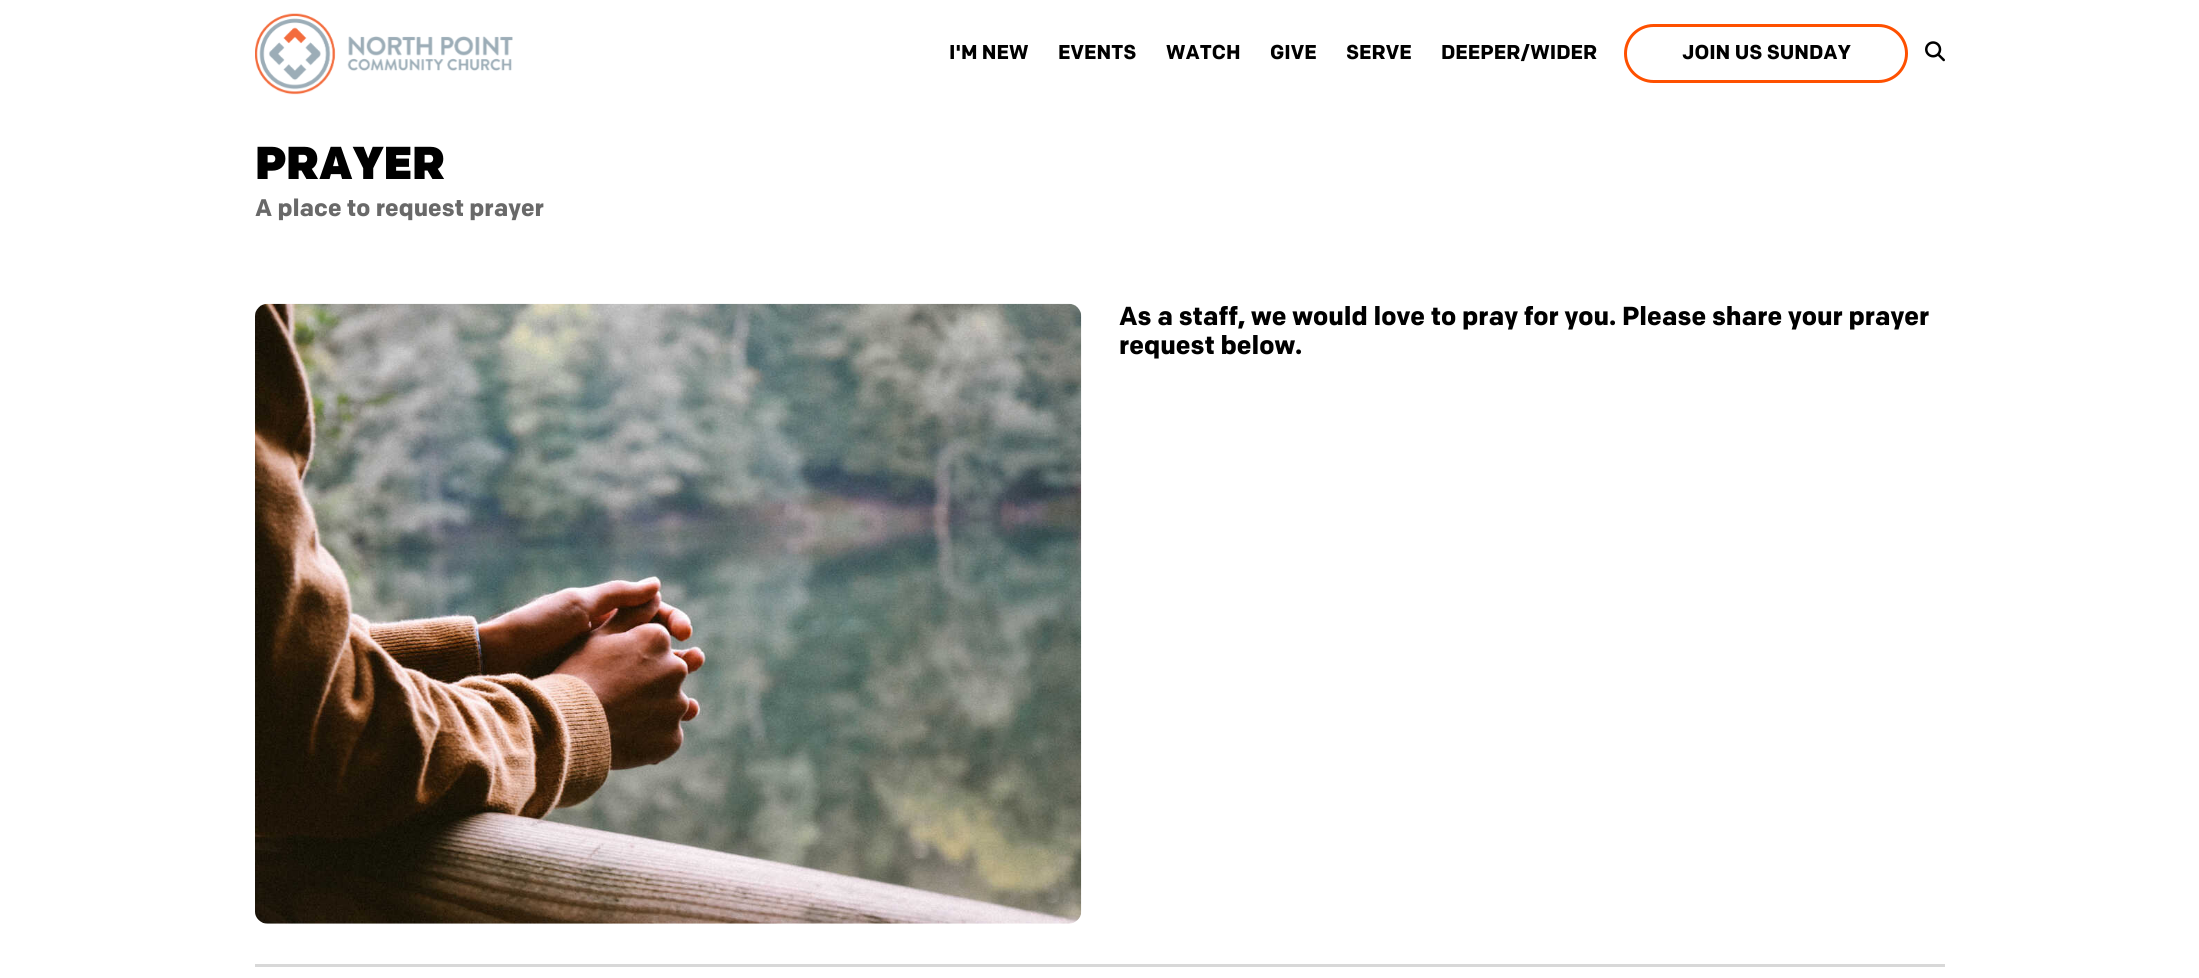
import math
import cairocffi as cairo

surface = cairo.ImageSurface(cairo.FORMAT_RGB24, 2199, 978)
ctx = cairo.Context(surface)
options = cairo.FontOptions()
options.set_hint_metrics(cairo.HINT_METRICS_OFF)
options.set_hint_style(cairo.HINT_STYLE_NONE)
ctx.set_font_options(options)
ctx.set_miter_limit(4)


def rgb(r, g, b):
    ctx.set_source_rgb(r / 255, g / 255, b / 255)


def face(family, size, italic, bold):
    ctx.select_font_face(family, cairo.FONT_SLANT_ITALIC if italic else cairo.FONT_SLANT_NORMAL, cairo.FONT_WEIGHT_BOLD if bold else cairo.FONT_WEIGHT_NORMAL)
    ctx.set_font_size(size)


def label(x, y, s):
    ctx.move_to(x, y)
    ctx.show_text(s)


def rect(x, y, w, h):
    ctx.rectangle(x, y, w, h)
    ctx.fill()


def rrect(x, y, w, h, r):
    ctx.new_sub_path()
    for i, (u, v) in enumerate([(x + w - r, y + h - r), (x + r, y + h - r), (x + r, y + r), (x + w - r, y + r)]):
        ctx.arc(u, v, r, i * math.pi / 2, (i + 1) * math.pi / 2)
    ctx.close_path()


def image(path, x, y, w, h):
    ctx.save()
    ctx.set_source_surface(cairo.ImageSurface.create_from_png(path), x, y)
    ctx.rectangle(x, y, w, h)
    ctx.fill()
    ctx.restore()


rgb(255, 255, 255)
ctx.paint()
image('image0.png', 255, 13, 258, 82)
face('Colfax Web', 20, 0, 1)
rgb(0, 0, 0)
label(949, 59, 'I\'M NEW')
label(1058, 59, 'EVENTS')
label(1166, 59, 'WATCH')
label(1270, 59, 'GIVE')
label(1346, 59, 'SERVE')
label(1441, 59, 'DEEPER/WIDER')
rrect(1625.5, 25.5, 281, 56, 28)
rgb(254, 80, 0)
ctx.set_line_width(3)
ctx.stroke()
rgb(0, 0, 0)
label(1682, 59, 'JOIN US SUNDAY')
image('image1.png', 1925, 41, 20, 21)
face('Colfax Web Black', 46, 0, 0)
label(255, 179, 'PRAYER')
face('Colfax Web', 24, 0, 1)
rgb(105, 105, 105)
label(255, 216, 'A place to request prayer')
image('image2.png', 255, 303, 827, 621)
face('Colfax Web', 26, 0, 1)
rgb(0, 0, 0)
label(1119, 325, 'As a staff, we would love to pray for you. Please share your prayer')
label(1119, 354, 'request below.')
rgb(216, 216, 216)
rect(255, 964, 1690, 3)
surface.write_to_png('render.png')
